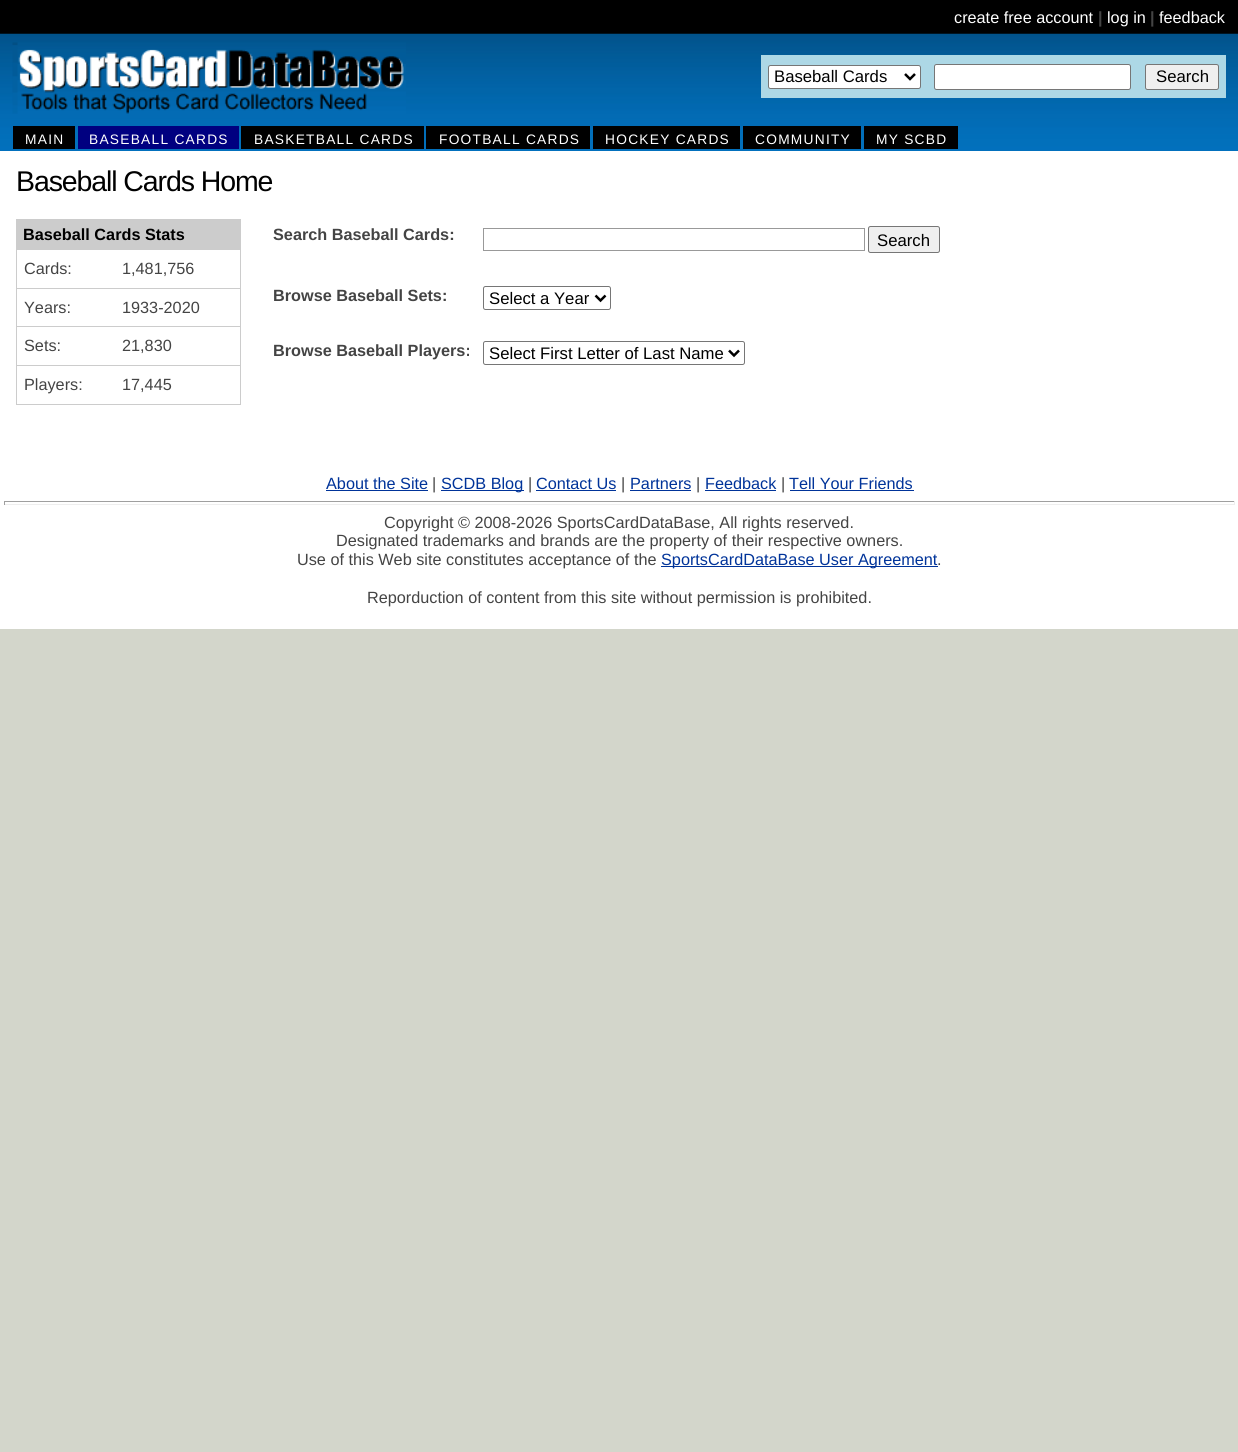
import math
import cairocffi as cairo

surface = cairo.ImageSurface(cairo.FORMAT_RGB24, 1238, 1452)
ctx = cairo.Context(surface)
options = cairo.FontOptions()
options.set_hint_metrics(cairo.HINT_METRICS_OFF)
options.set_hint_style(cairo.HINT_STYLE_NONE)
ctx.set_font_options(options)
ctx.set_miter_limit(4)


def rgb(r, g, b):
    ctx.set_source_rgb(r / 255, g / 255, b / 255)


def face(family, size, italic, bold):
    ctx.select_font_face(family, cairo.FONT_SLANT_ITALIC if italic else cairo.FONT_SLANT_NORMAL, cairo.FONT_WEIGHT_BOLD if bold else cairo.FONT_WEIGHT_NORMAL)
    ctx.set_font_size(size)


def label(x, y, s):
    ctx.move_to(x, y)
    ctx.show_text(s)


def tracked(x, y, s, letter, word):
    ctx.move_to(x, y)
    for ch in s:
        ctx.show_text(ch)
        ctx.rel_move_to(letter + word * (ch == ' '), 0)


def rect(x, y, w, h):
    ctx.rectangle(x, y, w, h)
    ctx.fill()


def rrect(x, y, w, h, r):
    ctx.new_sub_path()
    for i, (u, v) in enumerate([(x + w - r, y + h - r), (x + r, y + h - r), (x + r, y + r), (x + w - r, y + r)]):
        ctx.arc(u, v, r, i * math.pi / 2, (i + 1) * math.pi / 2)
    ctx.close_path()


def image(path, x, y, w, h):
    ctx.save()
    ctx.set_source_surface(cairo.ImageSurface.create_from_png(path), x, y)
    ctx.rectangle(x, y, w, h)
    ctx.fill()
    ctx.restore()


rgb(211, 214, 203)
ctx.paint()
rgb(0, 0, 0)
rect(0, 0, 1238, 34)
face('Liberation Sans', 16.25, 0, 0)
rgb(255, 255, 255)
label(954, 23, 'create free account')
face('Liberation Sans', 16.25, 0, 1)
rgb(68, 68, 68)
label(1098, 23, '|')
face('Liberation Sans', 16.25, 0, 0)
rgb(255, 255, 255)
label(1107, 23, 'log in')
face('Liberation Sans', 16.25, 0, 1)
rgb(68, 68, 68)
label(1150, 23, '|')
face('Liberation Sans', 16.25, 0, 0)
rgb(255, 255, 255)
label(1159, 23, 'feedback')
image('image0.png', 0, 33, 1238, 118)
image('image1.png', 12, 42, 394, 72)
rgb(173, 216, 230)
rect(761, 55, 465, 43)
rgb(255, 255, 255)
rrect(768.5, 65.5, 152, 23, 2)
ctx.fill_preserve()
rgb(118, 118, 118)
ctx.set_line_width(1)
ctx.stroke()
ctx.new_path()
ctx.move_to(905, 74)
ctx.line_to(910, 79)
ctx.line_to(915, 74)
rgb(0, 0, 0)
ctx.set_line_width(2.5)
ctx.stroke()
face('Liberation Sans', 16.7, 0, 0)
label(774, 82, 'Baseball Cards')
rgb(255, 255, 255)
rrect(934.5, 64.5, 196, 25, 2)
ctx.fill_preserve()
rgb(118, 118, 118)
ctx.set_line_width(1)
ctx.stroke()
rgb(239, 239, 239)
rrect(1145.5, 64.5, 73, 25, 2)
ctx.fill_preserve()
rgb(118, 118, 118)
ctx.stroke()
rgb(0, 0, 0)
label(1156, 82, 'Search')
rect(13, 126, 62, 23)
face('Liberation Sans', 13.75, 0, 0)
rgb(255, 255, 255)
tracked(25, 144, 'MAIN', 1.25, 0)
rgb(0, 0, 128)
rect(78, 126, 161, 23)
rgb(255, 255, 255)
tracked(89, 144, 'BASEBALL CARDS', 1.25, 0)
rgb(0, 0, 0)
rect(241, 126, 183, 23)
rgb(255, 255, 255)
tracked(254, 144, 'BASKETBALL CARDS', 1.25, 0)
rgb(0, 0, 0)
rect(426, 126, 164, 23)
rgb(255, 255, 255)
tracked(439, 144, 'FOOTBALL CARDS', 1.25, 0)
rgb(0, 0, 0)
rect(593, 126, 147, 23)
rgb(255, 255, 255)
tracked(605, 144, 'HOCKEY CARDS', 1.25, 0)
rgb(0, 0, 0)
rect(743, 126, 118, 23)
rgb(255, 255, 255)
tracked(755, 144, 'COMMUNITY', 1.25, 0)
rgb(0, 0, 0)
rect(864, 126, 94, 23)
rgb(255, 255, 255)
tracked(876, 144, 'MY SCBD', 1.25, 0)
rect(0, 151, 1238, 478)
face('Liberation Sans', 28.5, 0, 0)
rgb(0, 0, 0)
tracked(16, 191, 'Baseball Cards Home', -1.1, 0)
rgb(204, 204, 204)
rect(16, 219, 225, 31)
face('Liberation Sans', 16.25, 0, 1)
rgb(0, 0, 0)
label(23, 240, 'Baseball Cards Stats')
rgb(204, 204, 204)
rect(16, 288, 100, 1)
rect(16, 250, 1, 39)
face('Liberation Sans', 16.25, 0, 0)
rgb(68, 68, 68)
label(24, 274, 'Cards:')
rgb(204, 204, 204)
rect(240, 250, 1, 155)
rect(116, 288, 125, 1)
rgb(68, 68, 68)
label(122, 274, '1,481,756')
rgb(204, 204, 204)
rect(16, 326, 225, 1)
rect(16, 289, 1, 39)
rgb(68, 68, 68)
label(24, 313, 'Years:')
label(122, 313, '1933-2020')
rgb(204, 204, 204)
rect(16, 365, 225, 1)
rect(16, 328, 1, 38)
rgb(68, 68, 68)
label(24, 351, 'Sets:')
label(122, 351, '21,830')
rgb(204, 204, 204)
rect(16, 404, 225, 1)
rect(16, 366, 1, 39)
rgb(68, 68, 68)
label(24, 390, 'Players:')
label(122, 390, '17,445')
face('Liberation Sans', 16.25, 0, 1)
label(273, 240, 'Search Baseball Cards:')
ctx.rectangle(483.5, 228.5, 381, 22)
rgb(153, 153, 153)
ctx.stroke()
rgb(239, 239, 239)
rrect(868.5, 226.5, 71, 26, 2)
ctx.fill_preserve()
rgb(118, 118, 118)
ctx.stroke()
face('Liberation Sans', 16.7, 0, 0)
rgb(0, 0, 0)
label(877, 246, 'Search')
face('Liberation Sans', 16.25, 0, 1)
rgb(68, 68, 68)
label(273, 301, 'Browse Baseball Sets:')
rrect(483.5, 286.5, 127, 23, 2)
rgb(118, 118, 118)
ctx.stroke()
ctx.new_path()
ctx.move_to(595.5, 295.5)
ctx.line_to(600.5, 300.5)
ctx.line_to(605.5, 295.5)
rgb(0, 0, 0)
ctx.set_line_width(2.5)
ctx.stroke()
face('Liberation Sans', 16.7, 0, 0)
label(489, 304, 'Select a Year')
face('Liberation Sans', 16.25, 0, 1)
rgb(68, 68, 68)
label(273, 356, 'Browse Baseball Players:')
rrect(483.5, 341.5, 261, 23, 2)
rgb(118, 118, 118)
ctx.set_line_width(1)
ctx.stroke()
ctx.new_path()
ctx.move_to(729, 350.5)
ctx.line_to(734, 355.5)
ctx.line_to(739, 350.5)
rgb(0, 0, 0)
ctx.set_line_width(2.5)
ctx.stroke()
face('Liberation Sans', 16.7, 0, 0)
label(489, 359, 'Select First Letter of Last Name')
face('Liberation Sans', 16.25, 0, 0)
rgb(0, 51, 153)
label(326, 489, 'About the Site')
rect(326, 490, 102, 1)
rgb(68, 68, 68)
label(432, 489, '|')
rgb(0, 51, 153)
rect(441, 490, 83, 1)
label(441, 489, 'SCDB Blog')
rgb(68, 68, 68)
label(528, 489, '|')
rgb(0, 51, 153)
label(536, 489, 'Contact Us')
rect(536, 490, 80, 1)
rgb(68, 68, 68)
label(621, 489, '|')
rgb(0, 51, 153)
label(630, 489, 'Partners')
rect(630, 490, 61, 1)
rgb(68, 68, 68)
label(696, 489, '|')
rgb(0, 51, 153)
label(705, 489, 'Feedback')
rect(705, 490, 71, 1)
rgb(68, 68, 68)
label(781, 489, '|')
rgb(0, 51, 153)
label(789, 489, 'Tell Your Friends')
rect(790, 490, 124, 1)
rgb(159, 159, 159)
rect(4, 501, 1231, 1)
rgb(238, 238, 238)
rect(1234, 501, 1, 4)
rect(4, 504, 1231, 1)
rgb(159, 159, 159)
rect(4, 501, 1, 4)
rgb(68, 68, 68)
label(384, 528, 'Copyright © 2008-2026 SportsCardDataBase, All rights reserved.')
label(336, 546, 'Designated trademarks and brands are the property of their respective owners.')
label(297, 565, 'Use of this Web site constitutes acceptance of the')
rgb(0, 51, 153)
rect(661, 566, 277, 1)
label(661, 565, 'SportsCardDataBase User Agreement')
rgb(68, 68, 68)
label(937, 565, '.')
label(367, 603, 'Reporduction of content from this site without permission is prohibited.')
surface.write_to_png('render.png')
